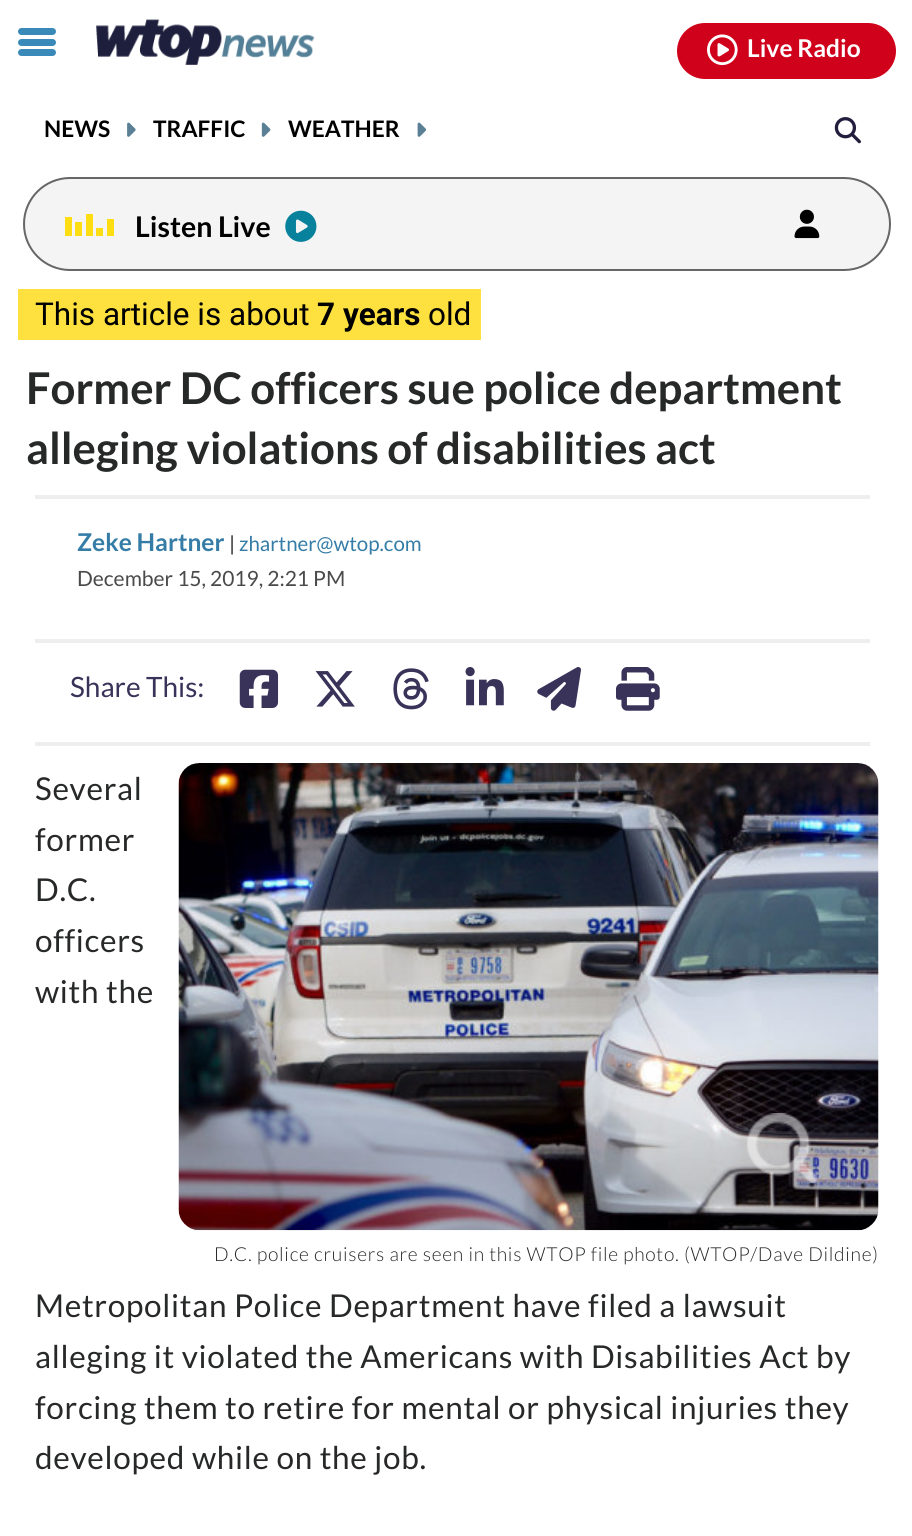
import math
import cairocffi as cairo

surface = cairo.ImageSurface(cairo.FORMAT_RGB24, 912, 1536)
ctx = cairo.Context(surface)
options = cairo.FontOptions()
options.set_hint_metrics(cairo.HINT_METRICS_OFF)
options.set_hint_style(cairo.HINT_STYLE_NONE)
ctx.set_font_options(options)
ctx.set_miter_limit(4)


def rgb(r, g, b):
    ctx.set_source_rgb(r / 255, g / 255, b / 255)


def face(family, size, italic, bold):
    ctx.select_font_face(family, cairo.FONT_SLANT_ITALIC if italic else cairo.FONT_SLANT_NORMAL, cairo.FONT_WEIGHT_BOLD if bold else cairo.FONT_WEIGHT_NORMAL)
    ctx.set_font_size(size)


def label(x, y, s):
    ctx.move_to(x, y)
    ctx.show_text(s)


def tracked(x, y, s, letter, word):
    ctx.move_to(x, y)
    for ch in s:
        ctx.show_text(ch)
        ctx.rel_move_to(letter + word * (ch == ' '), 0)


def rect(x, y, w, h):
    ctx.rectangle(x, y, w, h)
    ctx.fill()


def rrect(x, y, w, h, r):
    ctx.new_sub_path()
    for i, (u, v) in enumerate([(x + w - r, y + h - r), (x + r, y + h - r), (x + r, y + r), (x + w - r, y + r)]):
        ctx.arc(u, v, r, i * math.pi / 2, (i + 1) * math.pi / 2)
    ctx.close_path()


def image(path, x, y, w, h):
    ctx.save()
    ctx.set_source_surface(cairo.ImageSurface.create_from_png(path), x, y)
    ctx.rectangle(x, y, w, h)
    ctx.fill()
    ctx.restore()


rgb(255, 255, 255)
ctx.paint()
rgb(57, 138, 185)
rrect(18, 28, 38, 7, 3.5)
ctx.fill()
rrect(18, 39, 38, 7, 3.5)
ctx.fill()
rrect(18, 49, 38, 7, 3.5)
ctx.fill()
image('image0.png', 96, 19, 219, 46)
rgb(208, 2, 27)
rrect(677, 23, 219, 56, 28)
ctx.fill()
image('image1.png', 707, 34, 31, 32)
face('Lato', 24.5, 0, 1)
rgb(255, 255, 255)
label(747, 57, 'Live Radio')
face('Lato', 22.75, 0, 1)
rgb(0, 0, 0)
label(44, 137, 'NEWS')
image('image2.png', 127, 122, 9, 15)
label(153, 137, 'TRAFFIC')
image('image3.png', 261, 122, 10, 15)
label(288, 137, 'WEATHER')
image('image4.png', 417, 122, 10, 15)
image('image5.png', 834, 117, 27, 27)
rgb(244, 244, 244)
rrect(24, 178, 866, 92, 46)
ctx.fill_preserve()
rgb(102, 102, 102)
ctx.stroke()
rgb(255, 221, 19)
rect(65, 217, 7, 19)
rect(75, 222, 7, 14)
rect(86, 214, 7, 22)
rect(96, 228, 7, 8)
rect(107, 219, 7, 17)
face('Lato', 28.5, 0, 1)
rgb(0, 0, 0)
label(135, 237, 'Listen Live')
image('image6.png', 285, 210, 32, 32)
image('image7.png', 794, 209, 26, 30)
rgb(254, 225, 62)
rect(18, 289, 463, 51)
face('Roboto', 31.5, 0, 0)
rgb(0, 0, 0)
label(35, 325, 'This article is about')
face('Roboto', 31.5, 0, 1)
label(317, 325, '7 years')
face('Roboto', 31.5, 0, 0)
label(428, 325, 'old')
face('Lato', 43.75, 0, 1)
rgb(39, 40, 40)
label(26, 404, 'Former DC officers sue police department')
label(26, 464, 'alleging violations of disabilities act')
rgb(238, 238, 238)
rect(35, 495, 835, 4)
rect(35, 742, 835, 4)
rect(35, 639, 835, 4)
face('Lato', 24.5, 0, 1)
rgb(53, 125, 167)
label(77, 551, 'Zeke Hartner')
face('Lato', 20.5, 0, 0)
rgb(39, 40, 40)
label(229, 551, '|')
rgb(53, 125, 167)
label(239, 551, 'zhartner@wtop.com')
face('Lato', 21, 0, 0)
rgb(74, 74, 74)
label(77, 586, 'December 15, 2019, 2:21 PM')
face('Lato', 28, 0, 0)
rgb(58, 51, 89)
label(70, 697, 'Share This:')
image('image8.png', 239, 669, 40, 39)
image('image9.png', 315, 671, 40, 36)
image('image10.png', 393, 668, 36, 42)
image('image11.png', 465, 667, 39, 39)
image('image12.png', 537, 667, 44, 44)
image('image13.png', 616, 667, 44, 44)
face('Lato', 31.5, 0, 0)
rgb(39, 40, 40)
tracked(35, 800, 'Several', 0.7, 0)
tracked(35, 851, 'former', 0.7, 0)
tracked(35, 901, 'D.C.', 0.7, 0)
tracked(35, 952, 'officers', 0.7, 0)
tracked(35, 1003, 'with the', 0.7, 0)
tracked(35, 1317, 'Metropolitan Police Department have filed a lawsuit', 0.7, 0)
tracked(35, 1368, 'alleging it violated the Americans with Disabilities Act by', 0.7, 0)
tracked(35, 1419, 'forcing them to retire for mental or physical injuries they', 0.7, 0)
tracked(35, 1469, 'developed while on the job.', 0.7, 0)
image('image14.png', 178, 763, 701, 468)
image('image15.png', 747, 1113, 71, 70)
face('Lato Light', 19.25, 0, 0)
tracked(214, 1261, 'D.C. police cruisers are seen in this WTOP file photo. (WTOP/Dave Dildine)', 0.7, 0)
surface.write_to_png('render.png')
